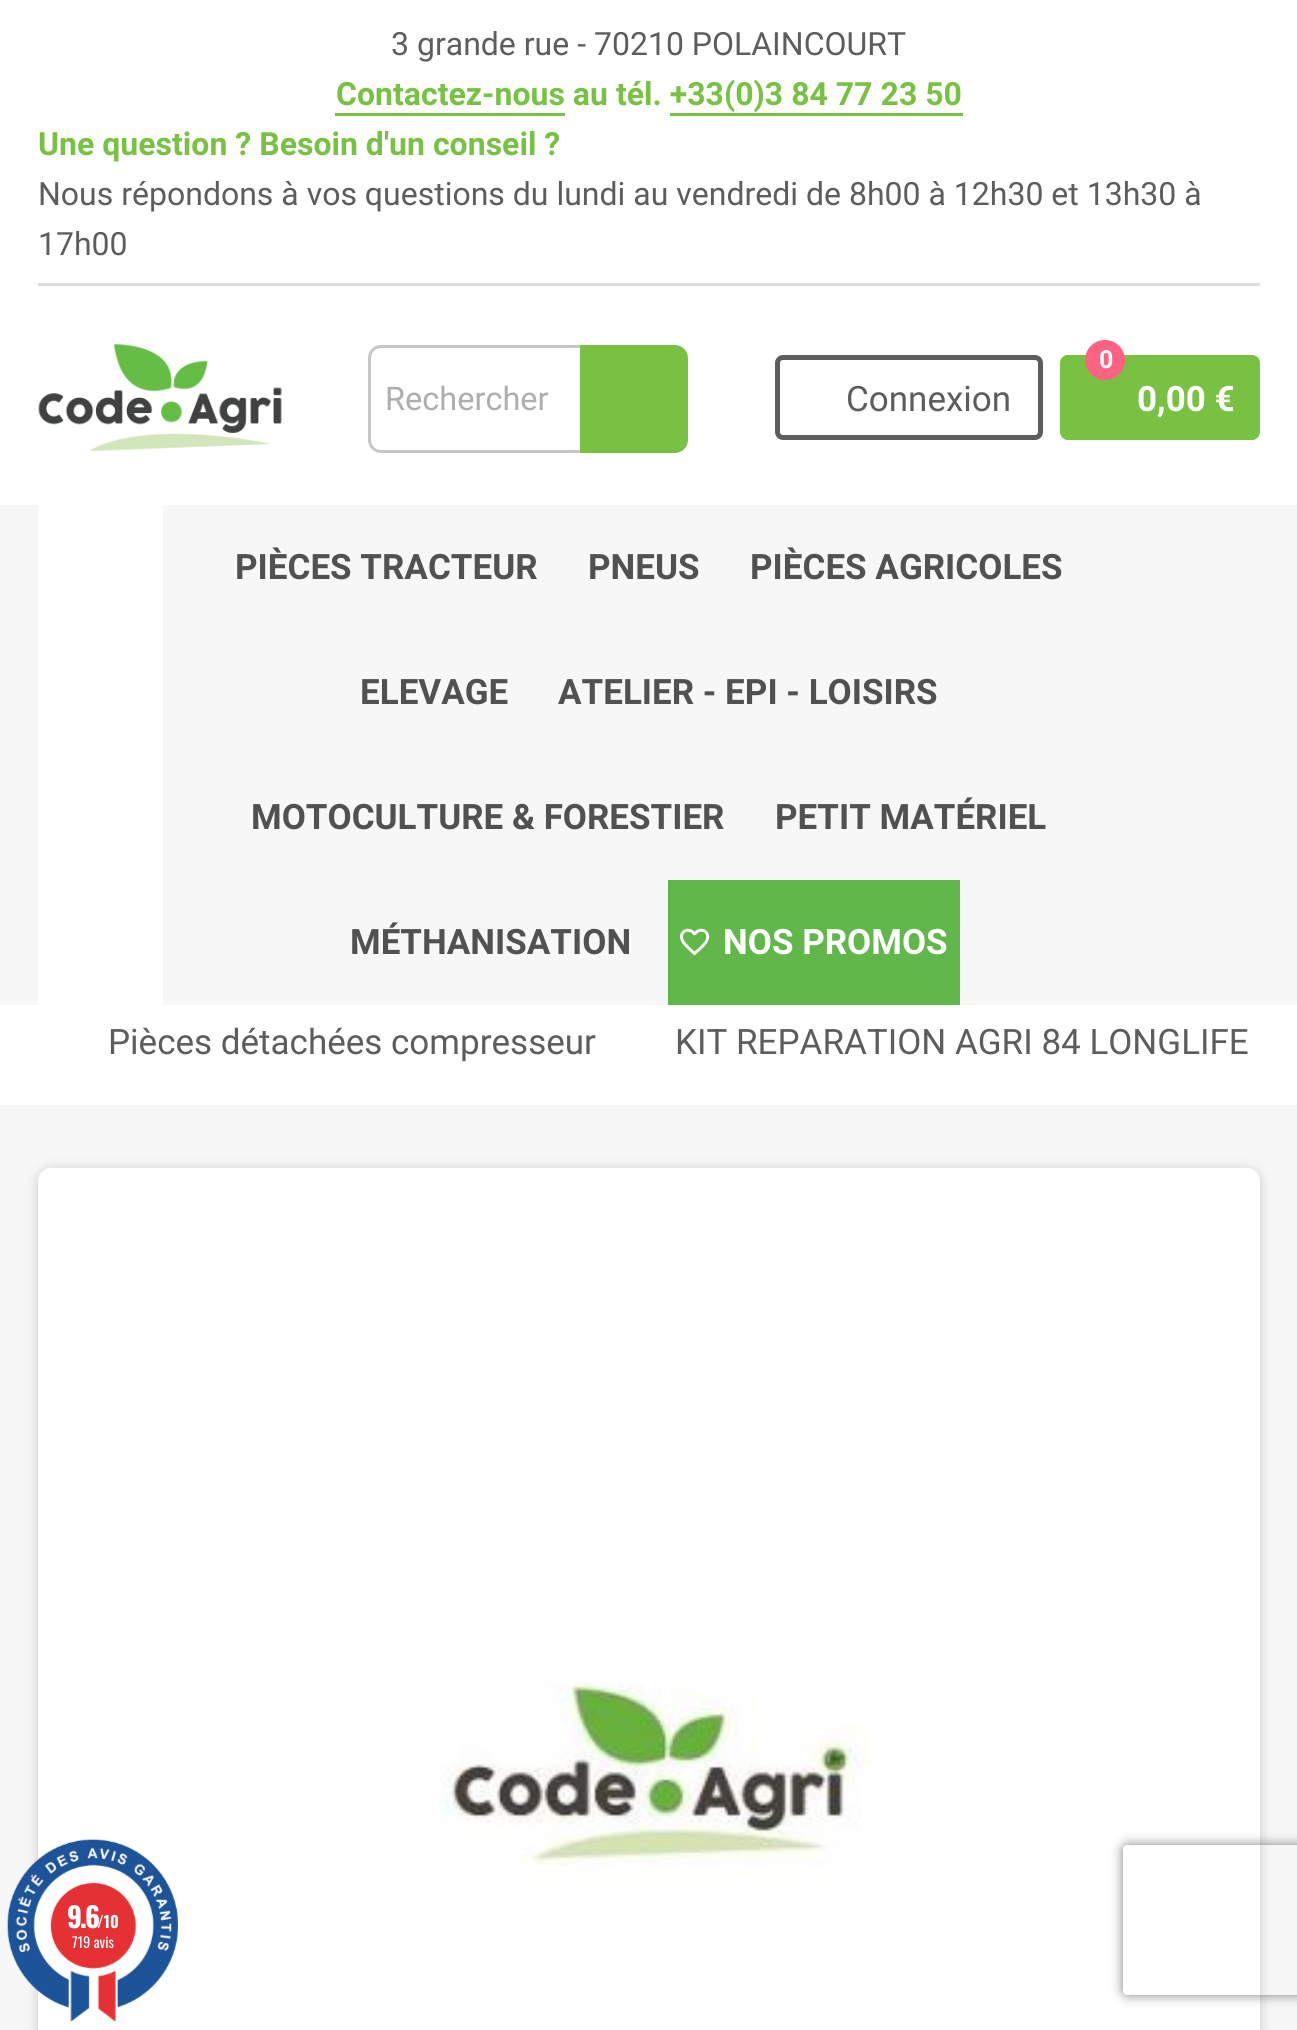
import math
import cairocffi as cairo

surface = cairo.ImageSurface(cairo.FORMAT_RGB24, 1297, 2030)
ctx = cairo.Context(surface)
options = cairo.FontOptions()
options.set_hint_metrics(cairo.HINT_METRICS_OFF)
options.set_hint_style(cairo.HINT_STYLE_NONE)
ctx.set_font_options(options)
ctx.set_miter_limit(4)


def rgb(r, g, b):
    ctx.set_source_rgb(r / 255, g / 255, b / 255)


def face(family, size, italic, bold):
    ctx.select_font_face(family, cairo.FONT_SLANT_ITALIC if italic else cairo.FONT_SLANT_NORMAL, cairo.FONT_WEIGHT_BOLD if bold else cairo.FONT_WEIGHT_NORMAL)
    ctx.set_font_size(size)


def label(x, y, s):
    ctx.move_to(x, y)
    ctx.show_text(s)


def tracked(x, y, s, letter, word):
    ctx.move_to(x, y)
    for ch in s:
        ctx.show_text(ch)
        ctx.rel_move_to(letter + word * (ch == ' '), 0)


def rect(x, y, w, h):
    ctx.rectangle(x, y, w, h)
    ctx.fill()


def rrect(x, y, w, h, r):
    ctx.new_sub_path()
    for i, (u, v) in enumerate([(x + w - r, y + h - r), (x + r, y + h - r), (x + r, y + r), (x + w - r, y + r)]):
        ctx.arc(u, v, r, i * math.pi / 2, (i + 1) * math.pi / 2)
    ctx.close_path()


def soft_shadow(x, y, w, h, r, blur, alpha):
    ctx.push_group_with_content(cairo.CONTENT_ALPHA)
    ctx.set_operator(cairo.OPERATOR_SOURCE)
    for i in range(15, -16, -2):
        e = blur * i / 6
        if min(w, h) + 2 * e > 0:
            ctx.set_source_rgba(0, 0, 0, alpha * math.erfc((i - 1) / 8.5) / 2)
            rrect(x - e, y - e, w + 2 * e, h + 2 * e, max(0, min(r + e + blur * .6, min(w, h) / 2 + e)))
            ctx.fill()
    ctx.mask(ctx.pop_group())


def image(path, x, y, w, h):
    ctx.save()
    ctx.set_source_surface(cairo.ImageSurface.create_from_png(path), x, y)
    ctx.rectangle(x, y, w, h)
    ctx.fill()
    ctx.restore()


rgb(255, 255, 255)
ctx.paint()
rgb(221, 221, 221)
rect(38, 283, 1222, 3)
face('Roboto', 32, 0, 0)
rgb(93, 93, 93)
label(391, 55, '3 grande rue - 70210 POLAINCOURT')
face('Roboto', 32, 0, 1)
rgb(121, 193, 67)
label(336, 105, 'Contactez-nous au tél. +33(0)3 84 77 23 50')
rect(335, 113, 230, 3)
rect(670, 113, 293, 3)
label(38, 155, 'Une question ? Besoin d\'un conseil ?')
face('Roboto', 32, 0, 0)
rgb(93, 93, 93)
label(38, 205, 'Nous répondons à vos questions du lundi au vendredi de 8h00 à 12h30 et 13h30 à')
label(38, 255, '17h00')
image('image0.png', 38, 343, 244, 109)
rrect(369.5, 346.5, 314, 105, 11.5)
rgb(199, 199, 199)
ctx.set_line_width(3)
ctx.stroke()
face('Roboto', 32.5, 0, 0)
rgb(174, 174, 174)
label(385, 410, 'Rechercher')
rgb(121, 193, 67)
ctx.new_path()
ctx.move_to(580, 345)
ctx.line_to(675, 345)
ctx.curve_to(682, 345, 688, 351, 688, 358)
ctx.line_to(688, 440)
ctx.curve_to(688, 447, 682, 453, 675, 453)
ctx.line_to(580, 453)
ctx.close_path()
ctx.fill()
rrect(777.5, 357.5, 263, 80, 5.5)
rgb(93, 93, 93)
ctx.set_line_width(5)
ctx.stroke()
face('Roboto', 35, 0, 0)
label(846, 411, 'Connexion')
rgb(121, 193, 67)
rrect(1060, 355, 200, 85, 8)
ctx.fill()
rgb(253, 98, 130)
ctx.arc(1105, 360, 20, 0, 2 * math.pi)
ctx.fill()
face('Roboto', 25, 0, 1)
rgb(255, 255, 255)
label(1099, 368, '0')
face('Roboto', 35, 0, 1)
label(1137, 411, '0,00 €')
rgb(247, 247, 247)
rect(0, 505, 1297, 500)
rgb(255, 255, 255)
rect(38, 505, 125, 500)
rgb(81, 81, 81)
label(235, 579, 'PIÈCES TRACTEUR')
label(588, 579, 'PNEUS')
label(750, 579, 'PIÈCES AGRICOLES')
label(360, 704, 'ELEVAGE')
label(558, 704, 'ATELIER - EPI - LOISIRS')
label(251, 829, 'MOTOCULTURE & FORESTIER')
label(775, 829, 'PETIT MATÉRIEL')
label(350, 954, 'MÉTHANISATION')
rgb(97, 183, 74)
rect(668, 880, 292, 125)
image('image1.png', 680, 928, 30, 28)
rgb(255, 255, 255)
label(723, 954, 'NOS PROMOS')
rgb(247, 247, 247)
rect(0, 1105, 1297, 925)
face('Roboto', 35, 0, 0)
rgb(93, 93, 93)
label(108, 1054, 'Pièces détachées compresseur')
label(675, 1054, 'KIT REPARATION AGRI 84 LONGLIFE')
rgb(0, 0, 0)
soft_shadow(38, 1170, 1222, 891, 13, 6, 0.2)
rgb(255, 255, 255)
rrect(38, 1168, 1222, 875, 13)
ctx.fill()
image('image2.png', 440, 1682, 433, 203)
ctx.save()
ctx.set_fill_rule(cairo.FILL_RULE_EVEN_ODD)
ctx.new_path()
ctx.move_to(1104, 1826)
ctx.line_to(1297, 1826)
ctx.line_to(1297, 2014)
ctx.line_to(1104, 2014)
ctx.close_path()
ctx.move_to(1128, 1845)
ctx.line_to(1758, 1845)
ctx.curve_to(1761, 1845, 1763, 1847, 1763, 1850)
ctx.line_to(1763, 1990)
ctx.curve_to(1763, 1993, 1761, 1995, 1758, 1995)
ctx.line_to(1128, 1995)
ctx.curve_to(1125, 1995, 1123, 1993, 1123, 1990)
ctx.line_to(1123, 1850)
ctx.curve_to(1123, 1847, 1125, 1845, 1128, 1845)
ctx.close_path()
ctx.clip()
rgb(128, 128, 128)
soft_shadow(1123, 1845, 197, 150, 5, 6, 1)
ctx.restore()
image('image3.png', 6, 1838, 173, 184)
face('Oswald', 28, 0, 1)
tracked(67, 1928, '9.6', -2, 0)
face('Oswald', 16, 0, 1)
label(97, 1928, '/10')
face('Oswald', 14.5, 0, 0)
label(72, 1948, '719 avis')
surface.write_to_png('render.png')
